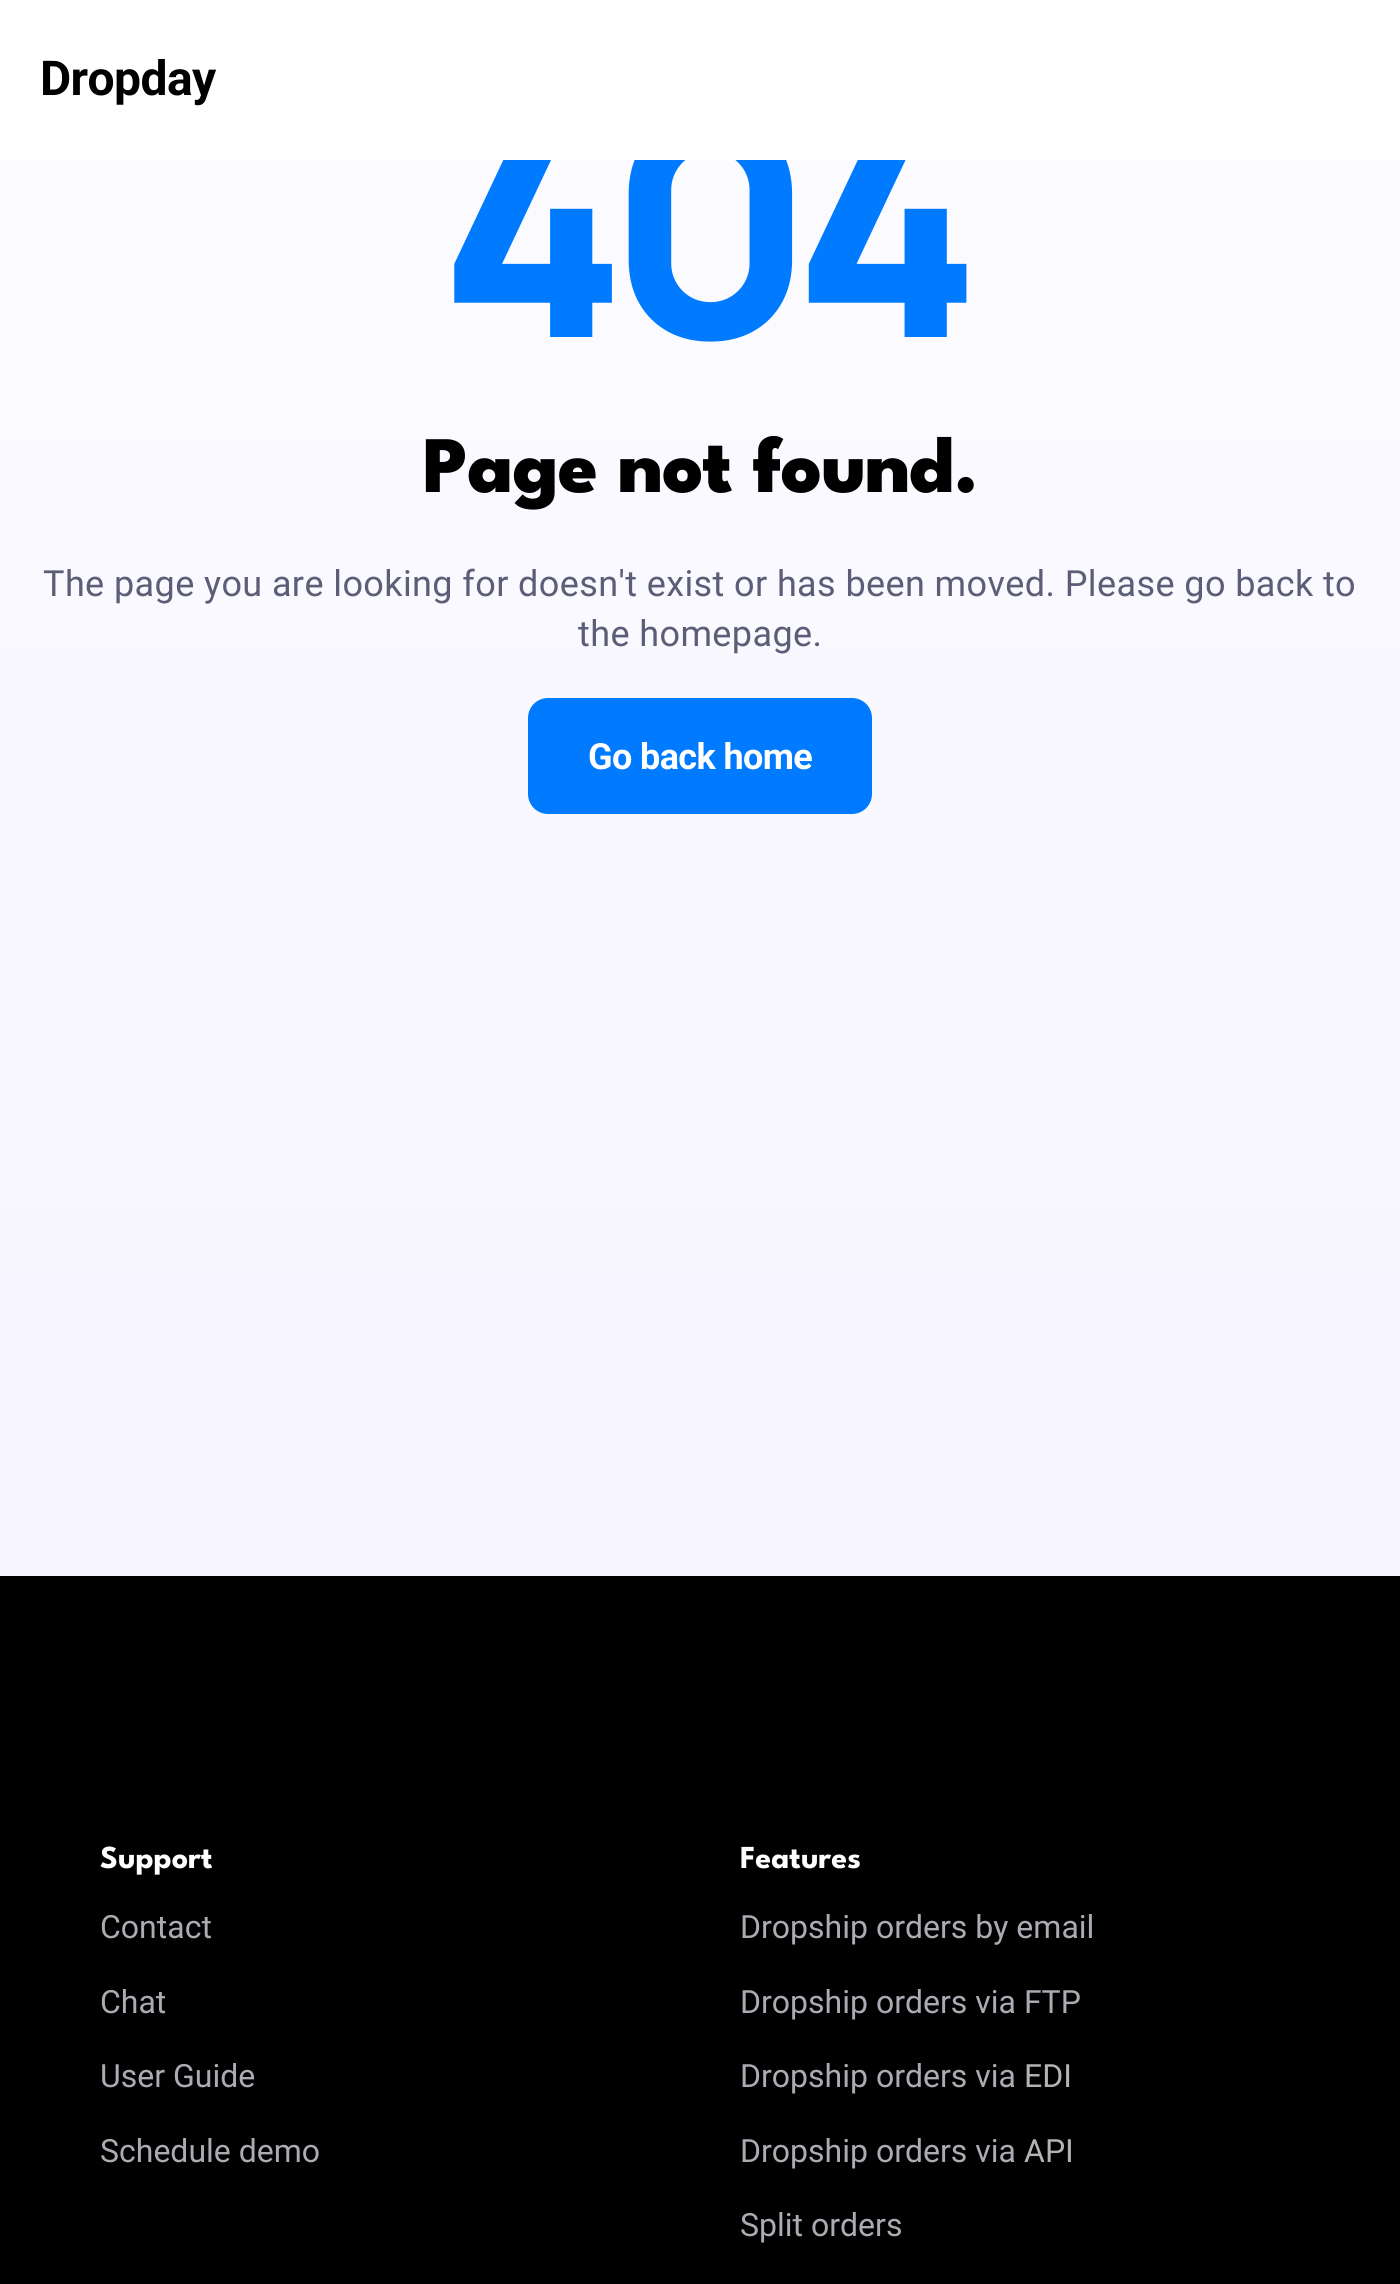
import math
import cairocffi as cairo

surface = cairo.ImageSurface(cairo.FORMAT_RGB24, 1400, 2284)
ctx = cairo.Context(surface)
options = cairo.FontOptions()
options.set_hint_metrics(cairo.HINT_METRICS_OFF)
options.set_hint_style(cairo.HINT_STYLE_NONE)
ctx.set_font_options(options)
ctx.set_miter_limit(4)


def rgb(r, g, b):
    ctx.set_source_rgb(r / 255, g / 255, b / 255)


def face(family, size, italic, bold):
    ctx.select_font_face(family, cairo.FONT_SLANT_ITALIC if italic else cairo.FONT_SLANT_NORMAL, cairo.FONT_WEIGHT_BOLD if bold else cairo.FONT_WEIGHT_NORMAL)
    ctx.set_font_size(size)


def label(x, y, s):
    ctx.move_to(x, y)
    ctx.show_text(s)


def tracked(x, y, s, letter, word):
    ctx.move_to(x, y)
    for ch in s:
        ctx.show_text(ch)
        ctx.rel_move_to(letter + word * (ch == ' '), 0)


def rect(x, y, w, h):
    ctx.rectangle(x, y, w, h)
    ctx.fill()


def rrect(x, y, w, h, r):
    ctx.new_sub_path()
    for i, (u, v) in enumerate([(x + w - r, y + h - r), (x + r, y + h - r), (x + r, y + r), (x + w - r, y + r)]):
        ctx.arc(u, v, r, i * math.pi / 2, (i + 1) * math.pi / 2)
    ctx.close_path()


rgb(0, 0, 0)
ctx.paint()
gradient = cairo.LinearGradient(700, 1576, 700, -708)
gradient.add_color_stop_rgba(0, 0.965, 0.957, 1, 1)
gradient.add_color_stop_rgba(1, 1, 1, 1, 1)
ctx.set_source(gradient)
rect(0, 160, 1400, 1416)
face('Manrope ExtraBold', 306, 0, 0)
rgb(0, 123, 255)
tracked(439, 337, '404', -20, 0)
rgb(255, 255, 255)
rect(0, 0, 1400, 160)
face('Roboto', 48, 0, 1)
rgb(0, 0, 0)
tracked(40, 95, 'Dropday', -0.6, 0)
face('League Spartan ExtraBold', 80, 0, 0)
tracked(423, 492, 'Page not found.', -1, 0)
face('Roboto', 36, 0, 0)
rgb(91, 94, 118)
tracked(43, 596, 'The page you are looking for doesn\'t exist or has been moved. Please go back to', 0.4, 0)
tracked(578, 646, 'the homepage.', 0.4, 0)
rgb(0, 123, 255)
rrect(528, 698, 344, 116, 20)
ctx.fill()
face('Roboto', 36, 0, 1)
rgb(255, 255, 255)
tracked(588, 769, 'Go back home', -0.6, 0)
face('League Spartan', 32, 0, 1)
label(100, 1868, 'Support')
face('Roboto', 32, 0, 0)
rgb(172, 171, 179)
label(100, 1938, 'Contact')
label(100, 2013, 'Chat')
label(100, 2087, 'User Guide')
label(100, 2162, 'Schedule demo')
face('League Spartan', 32, 0, 1)
rgb(255, 255, 255)
label(740, 1868, 'Features')
face('Roboto', 32, 0, 0)
rgb(172, 171, 179)
label(740, 1938, 'Dropship orders by email')
label(740, 2013, 'Dropship orders via FTP')
label(740, 2087, 'Dropship orders via')
rgb(179, 179, 179)
label(1024, 2087, 'EDI')
rgb(172, 171, 179)
label(740, 2162, 'Dropship orders via')
rgb(179, 179, 179)
label(1024, 2162, 'API')
rgb(172, 171, 179)
label(740, 2236, 'Split orders')
surface.write_to_png('render.png')
